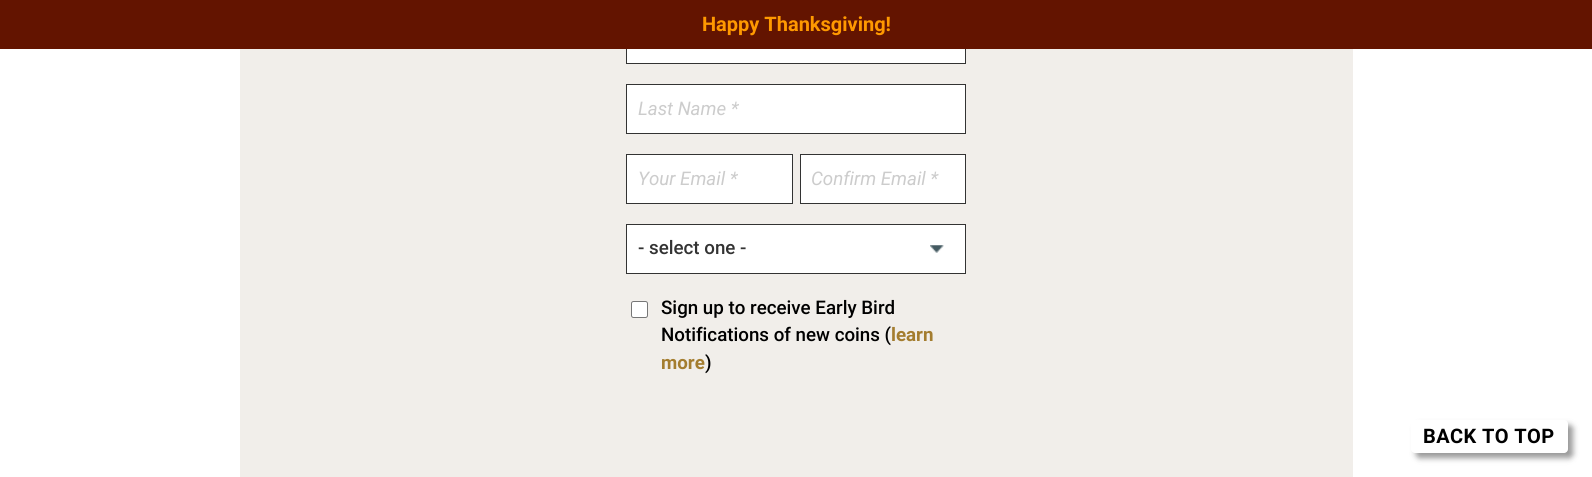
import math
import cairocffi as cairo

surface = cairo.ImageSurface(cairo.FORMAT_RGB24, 1592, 477)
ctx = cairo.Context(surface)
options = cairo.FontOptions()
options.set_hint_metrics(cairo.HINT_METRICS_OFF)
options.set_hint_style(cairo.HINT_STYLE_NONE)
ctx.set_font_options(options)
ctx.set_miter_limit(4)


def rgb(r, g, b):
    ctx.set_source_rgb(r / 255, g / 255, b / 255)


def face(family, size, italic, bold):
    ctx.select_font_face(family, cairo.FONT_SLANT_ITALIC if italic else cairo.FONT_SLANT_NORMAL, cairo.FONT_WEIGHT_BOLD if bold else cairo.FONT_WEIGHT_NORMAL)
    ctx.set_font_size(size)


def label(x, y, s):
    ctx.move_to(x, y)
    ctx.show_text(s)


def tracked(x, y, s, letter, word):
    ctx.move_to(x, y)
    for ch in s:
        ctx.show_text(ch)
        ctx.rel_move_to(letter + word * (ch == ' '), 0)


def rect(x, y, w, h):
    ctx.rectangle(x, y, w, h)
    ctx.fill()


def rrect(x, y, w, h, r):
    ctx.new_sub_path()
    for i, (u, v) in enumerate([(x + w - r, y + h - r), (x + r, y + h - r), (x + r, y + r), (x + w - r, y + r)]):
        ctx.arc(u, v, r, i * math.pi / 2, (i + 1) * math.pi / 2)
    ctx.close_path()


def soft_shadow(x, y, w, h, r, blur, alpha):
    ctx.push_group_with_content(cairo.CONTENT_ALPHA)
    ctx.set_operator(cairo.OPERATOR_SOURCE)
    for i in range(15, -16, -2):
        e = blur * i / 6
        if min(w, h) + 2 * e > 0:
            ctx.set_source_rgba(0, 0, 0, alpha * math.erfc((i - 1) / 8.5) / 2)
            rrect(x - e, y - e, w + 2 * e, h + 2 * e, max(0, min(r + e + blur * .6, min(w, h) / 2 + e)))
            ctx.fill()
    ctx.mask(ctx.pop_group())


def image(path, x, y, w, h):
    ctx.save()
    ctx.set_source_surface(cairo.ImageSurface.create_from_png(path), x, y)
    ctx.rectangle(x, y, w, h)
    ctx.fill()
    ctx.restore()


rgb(255, 255, 255)
ctx.paint()
rgb(241, 238, 234)
rect(240, 49, 1113, 428)
rgb(255, 255, 255)
rect(627, 49, 338, 14)
ctx.rectangle(626.5, 14.5, 339, 49)
rgb(51, 51, 51)
ctx.set_line_width(1)
ctx.stroke()
rgb(99, 20, 0)
rect(0, 0, 1592, 49)
face('Roboto', 20, 0, 1)
rgb(255, 153, 0)
label(702, 31, 'Happy Thanksgiving!')
rgb(255, 255, 255)
ctx.rectangle(626.5, 84.5, 339, 49)
ctx.fill_preserve()
rgb(51, 51, 51)
ctx.stroke()
face('Roboto', 18.75, 1, 0)
rgb(204, 204, 204)
label(638, 115, 'Last Name *')
rgb(255, 255, 255)
ctx.rectangle(626.5, 154.5, 166, 49)
ctx.fill_preserve()
rgb(51, 51, 51)
ctx.stroke()
rgb(204, 204, 204)
label(638, 185, 'Your Email *')
rgb(255, 255, 255)
ctx.rectangle(800.5, 154.5, 165, 49)
ctx.fill_preserve()
rgb(51, 51, 51)
ctx.stroke()
rgb(204, 204, 204)
label(811, 185, 'Confirm Email *')
rgb(255, 255, 255)
rect(627, 225, 338, 48)
image('image0.png', 930, 245, 14, 8)
ctx.rectangle(626.5, 224.5, 339, 49)
rgb(51, 51, 51)
ctx.stroke()
face('Roboto Medium', 18.75, 0, 0)
label(638, 254, '- select one -')
rgb(255, 255, 255)
rrect(631.5, 301.5, 16, 16, 2)
ctx.fill_preserve()
rgb(118, 118, 118)
ctx.stroke()
rgb(0, 0, 0)
label(661, 314, 'Sign up to receive Early Bird')
label(661, 341, 'Notifications of new coins (')
face('Roboto', 18.75, 0, 1)
rgb(164, 125, 47)
label(891, 341, 'learn')
label(661, 369, 'more')
face('Roboto Medium', 18.75, 0, 0)
rgb(0, 0, 0)
label(705, 369, ')')
rgb(50, 50, 50)
soft_shadow(1416, 425, 157, 33, 4, 3, 0.5)
rgb(255, 255, 255)
rrect(1411, 420, 157, 33, 4)
ctx.fill()
face('Roboto', 20, 0, 1)
rgb(0, 0, 0)
tracked(1423, 443, 'BACK TO TOP', 0.4, 0)
surface.write_to_png('render.png')
